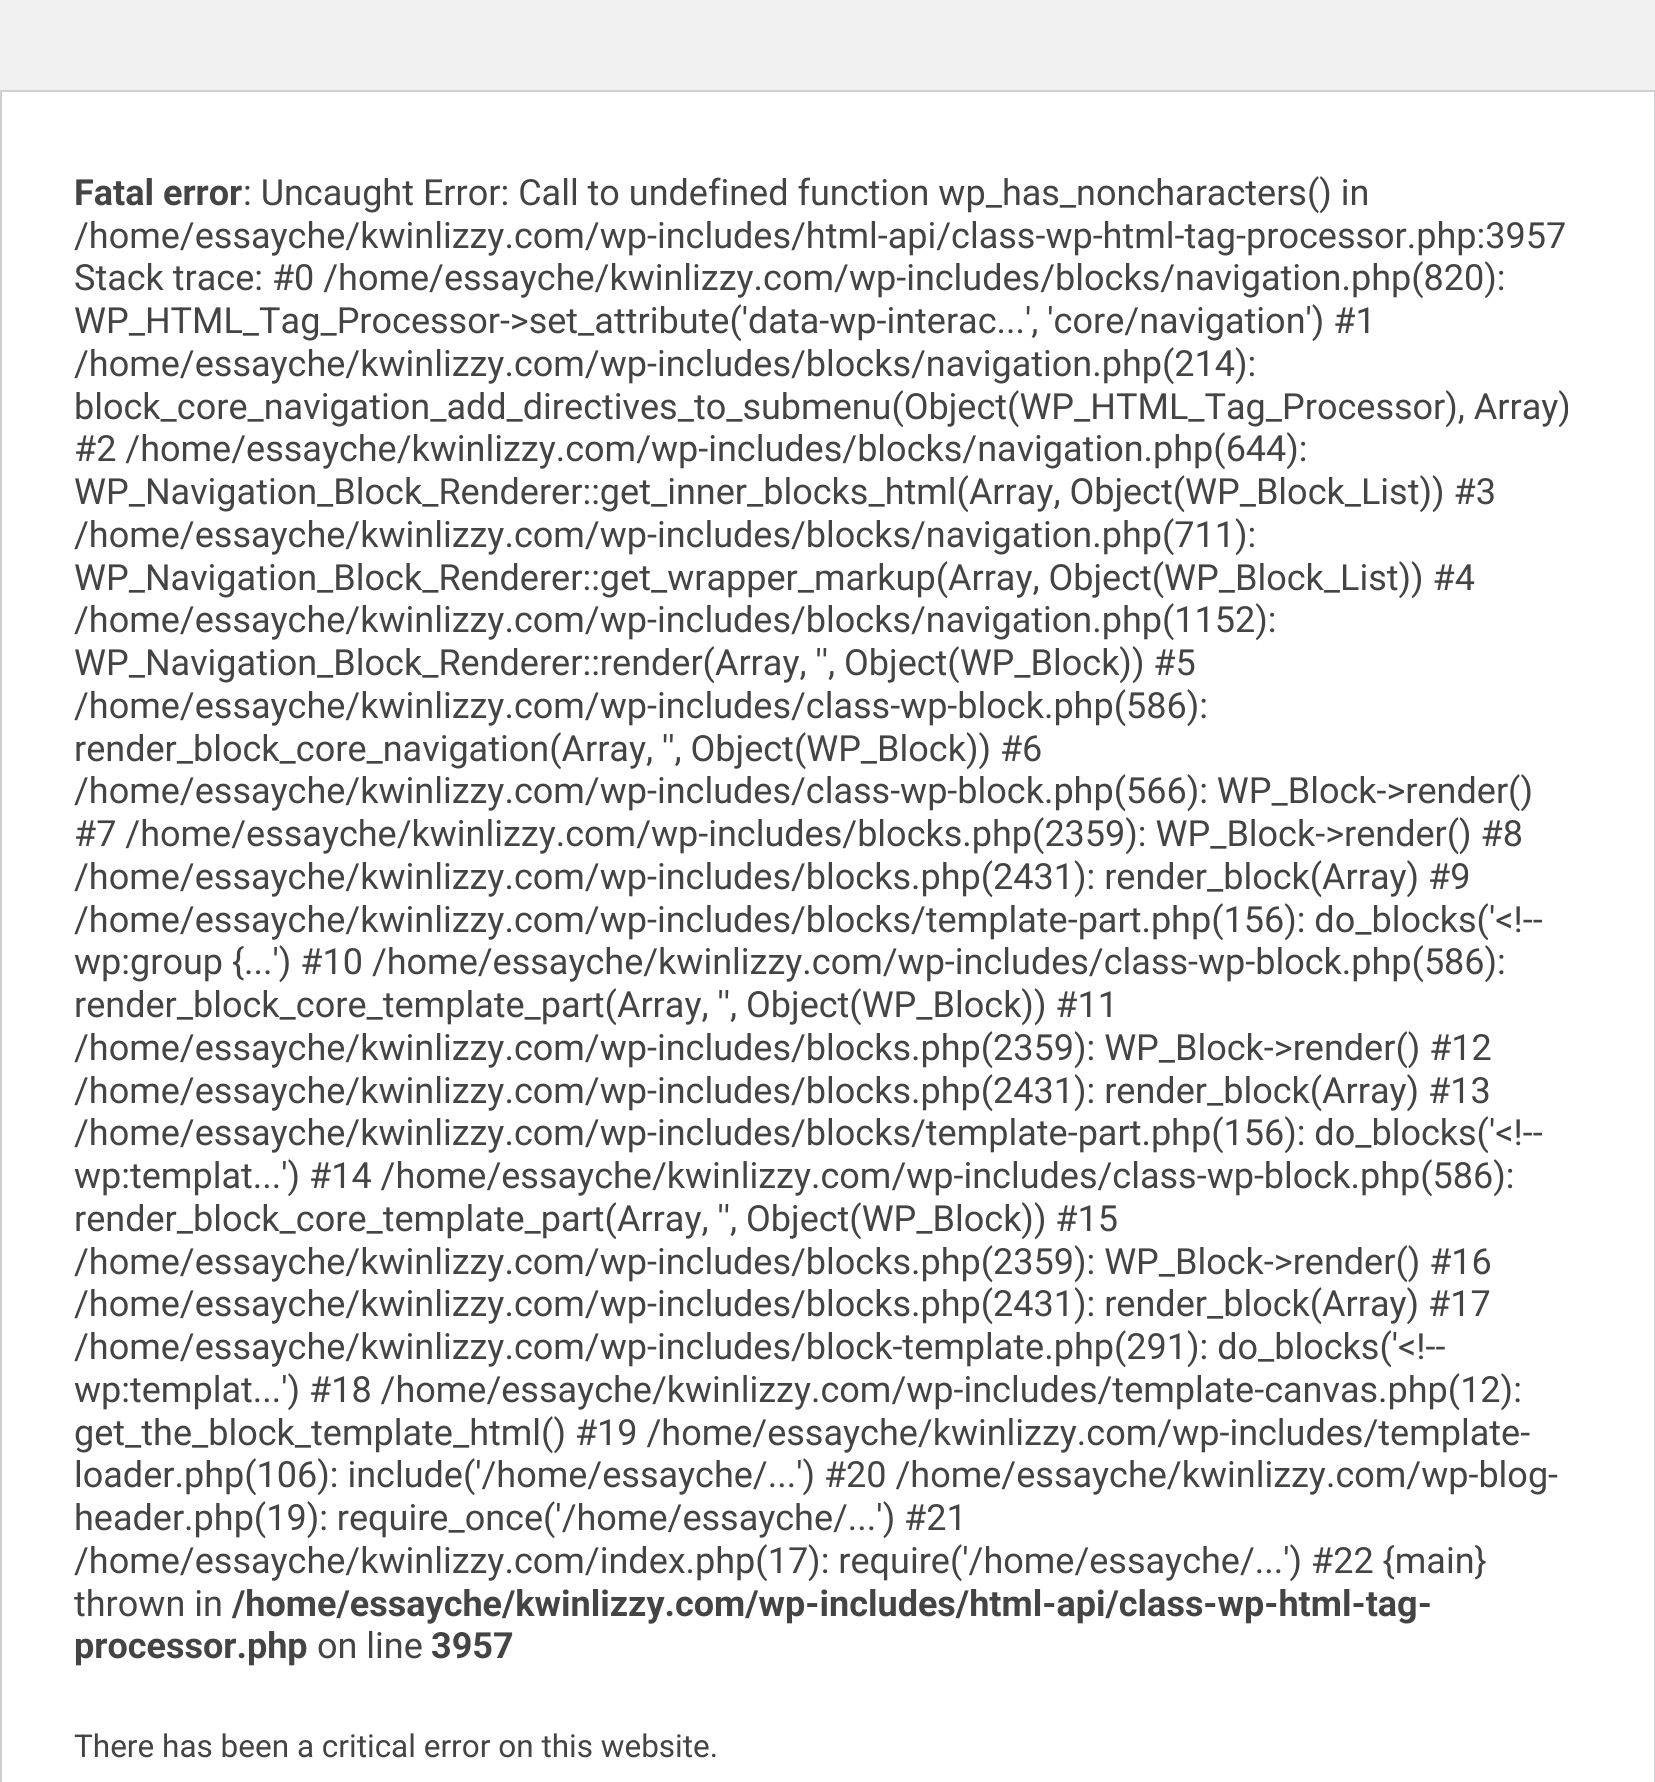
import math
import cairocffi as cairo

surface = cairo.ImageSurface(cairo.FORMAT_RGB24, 1655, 1782)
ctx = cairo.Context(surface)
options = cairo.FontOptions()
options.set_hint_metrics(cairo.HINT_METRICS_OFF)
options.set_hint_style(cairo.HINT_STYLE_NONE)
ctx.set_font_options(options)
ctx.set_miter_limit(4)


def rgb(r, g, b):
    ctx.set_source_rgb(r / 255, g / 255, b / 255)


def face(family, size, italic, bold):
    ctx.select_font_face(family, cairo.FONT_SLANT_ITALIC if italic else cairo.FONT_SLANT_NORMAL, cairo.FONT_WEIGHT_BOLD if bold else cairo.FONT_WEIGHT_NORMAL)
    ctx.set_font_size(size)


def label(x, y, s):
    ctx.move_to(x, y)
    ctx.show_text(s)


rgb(241, 241, 241)
ctx.paint()
rgb(255, 255, 255)
ctx.rectangle(1, 91, 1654, 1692)
ctx.fill_preserve()
rgb(204, 208, 212)
ctx.stroke()
face('Roboto', 36, 0, 1)
rgb(68, 68, 68)
label(74, 205, 'Fatal error')
face('Roboto', 36, 0, 0)
label(243, 205, ': Uncaught Error: Call to undefined function wp_has_noncharacters() in')
label(74, 248, '/home/essayche/kwinlizzy.com/wp-includes/html-api/class-wp-html-tag-processor.php:3957')
label(74, 290, 'Stack trace: #0 /home/essayche/kwinlizzy.com/wp-includes/blocks/navigation.php(820):')
label(74, 333, 'WP_HTML_Tag_Processor->set_attribute(\'data-wp-interac...\', \'core/navigation\') #1')
label(74, 376, '/home/essayche/kwinlizzy.com/wp-includes/blocks/navigation.php(214):')
label(74, 419, 'block_core_navigation_add_directives_to_submenu(Object(WP_HTML_Tag_Processor), Array)')
label(74, 461, '#2 /home/essayche/kwinlizzy.com/wp-includes/blocks/navigation.php(644):')
label(74, 504, 'WP_Navigation_Block_Renderer::get_inner_blocks_html(Array, Object(WP_Block_List)) #3')
label(74, 547, '/home/essayche/kwinlizzy.com/wp-includes/blocks/navigation.php(711):')
label(74, 590, 'WP_Navigation_Block_Renderer::get_wrapper_markup(Array, Object(WP_Block_List)) #4')
label(74, 632, '/home/essayche/kwinlizzy.com/wp-includes/blocks/navigation.php(1152):')
label(74, 675, 'WP_Navigation_Block_Renderer::render(Array, \'\', Object(WP_Block)) #5')
label(74, 718, '/home/essayche/kwinlizzy.com/wp-includes/class-wp-block.php(586):')
label(74, 761, 'render_block_core_navigation(Array, \'\', Object(WP_Block)) #6')
label(74, 803, '/home/essayche/kwinlizzy.com/wp-includes/class-wp-block.php(566): WP_Block->render()')
label(74, 846, '#7 /home/essayche/kwinlizzy.com/wp-includes/blocks.php(2359): WP_Block->render() #8')
label(74, 889, '/home/essayche/kwinlizzy.com/wp-includes/blocks.php(2431): render_block(Array) #9')
label(74, 932, '/home/essayche/kwinlizzy.com/wp-includes/blocks/template-part.php(156): do_blocks(\'<!--')
label(74, 974, 'wp:group {...\') #10 /home/essayche/kwinlizzy.com/wp-includes/class-wp-block.php(586):')
label(74, 1017, 'render_block_core_template_part(Array, \'\', Object(WP_Block)) #11')
label(74, 1060, '/home/essayche/kwinlizzy.com/wp-includes/blocks.php(2359): WP_Block->render() #12')
label(74, 1103, '/home/essayche/kwinlizzy.com/wp-includes/blocks.php(2431): render_block(Array) #13')
label(74, 1145, '/home/essayche/kwinlizzy.com/wp-includes/blocks/template-part.php(156): do_blocks(\'<!--')
label(74, 1188, 'wp:templat...\') #14 /home/essayche/kwinlizzy.com/wp-includes/class-wp-block.php(586):')
label(74, 1231, 'render_block_core_template_part(Array, \'\', Object(WP_Block)) #15')
label(74, 1274, '/home/essayche/kwinlizzy.com/wp-includes/blocks.php(2359): WP_Block->render() #16')
label(74, 1316, '/home/essayche/kwinlizzy.com/wp-includes/blocks.php(2431): render_block(Array) #17')
label(74, 1359, '/home/essayche/kwinlizzy.com/wp-includes/block-template.php(291): do_blocks(\'<!--')
label(74, 1402, 'wp:templat...\') #18 /home/essayche/kwinlizzy.com/wp-includes/template-canvas.php(12):')
label(74, 1445, 'get_the_block_template_html() #19 /home/essayche/kwinlizzy.com/wp-includes/template-')
label(74, 1487, 'loader.php(106): include(\'/home/essayche/...\') #20 /home/essayche/kwinlizzy.com/wp-blog-')
label(74, 1530, 'header.php(19): require_once(\'/home/essayche/...\') #21')
label(74, 1573, '/home/essayche/kwinlizzy.com/index.php(17): require(\'/home/essayche/...\') #22 {main}')
label(74, 1616, 'thrown in')
face('Roboto', 36, 0, 1)
label(232, 1616, '/home/essayche/kwinlizzy.com/wp-includes/html-api/class-wp-html-tag-')
label(74, 1658, 'processor.php')
face('Roboto', 36, 0, 0)
label(317, 1658, 'on line')
face('Roboto', 36, 0, 1)
label(431, 1658, '3957')
face('Roboto', 31.5, 0, 0)
label(74, 1757, 'There has been a critical error on this website.')
surface.write_to_png('render.png')
